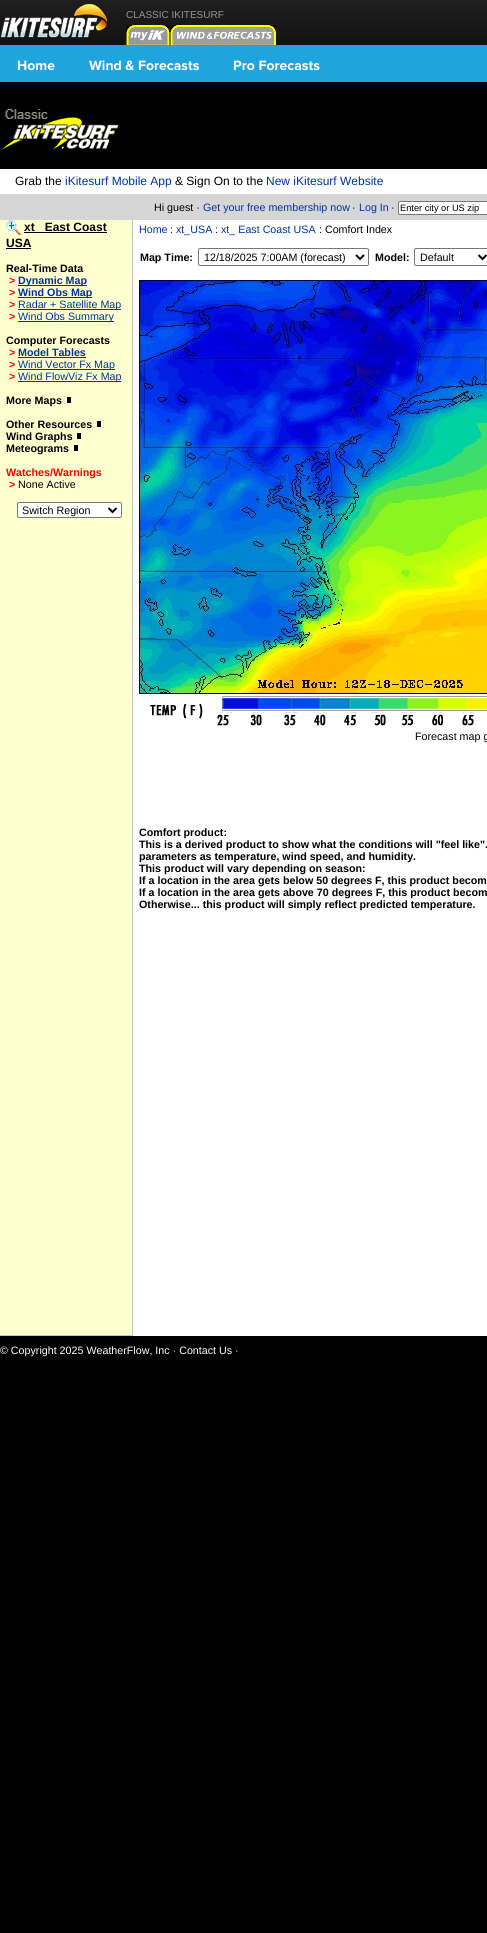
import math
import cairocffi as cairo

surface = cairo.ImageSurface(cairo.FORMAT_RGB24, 487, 1933)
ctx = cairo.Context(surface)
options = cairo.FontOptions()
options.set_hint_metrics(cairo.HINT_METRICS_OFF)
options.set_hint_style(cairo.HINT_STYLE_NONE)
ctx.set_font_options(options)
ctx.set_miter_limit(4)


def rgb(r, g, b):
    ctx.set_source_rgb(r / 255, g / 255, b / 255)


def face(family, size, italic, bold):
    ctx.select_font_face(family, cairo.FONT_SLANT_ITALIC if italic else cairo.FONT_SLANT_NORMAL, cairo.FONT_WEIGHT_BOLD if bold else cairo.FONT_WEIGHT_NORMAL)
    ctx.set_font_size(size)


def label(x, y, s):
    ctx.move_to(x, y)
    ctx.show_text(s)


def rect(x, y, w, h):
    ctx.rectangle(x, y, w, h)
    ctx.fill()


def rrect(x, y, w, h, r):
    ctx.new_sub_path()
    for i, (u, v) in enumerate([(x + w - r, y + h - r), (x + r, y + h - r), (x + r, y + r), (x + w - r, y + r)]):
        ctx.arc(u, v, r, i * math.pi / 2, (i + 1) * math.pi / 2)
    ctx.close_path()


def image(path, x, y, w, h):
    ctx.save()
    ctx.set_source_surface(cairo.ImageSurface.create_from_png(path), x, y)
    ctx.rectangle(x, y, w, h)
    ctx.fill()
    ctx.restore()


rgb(0, 0, 0)
ctx.paint()
image('image0.png', 0, 0, 487, 45)
image('image1.png', 0, 4, 108, 34)
face('Liberation Sans', 10, 0, 0)
rgb(149, 149, 149)
label(126, 18, 'CLASSIC IKITESURF')
image('image2.png', 126, 25, 44, 20)
image('image3.png', 170, 25, 106, 20)
rgb(30, 165, 222)
rect(0, 45, 487, 37)
face('Proxima Nova', 14, 0, 1)
rgb(255, 255, 255)
label(17, 70, 'Home')
label(89, 70, 'Wind & Forecasts')
label(233, 70, 'Pro Forecasts')
image('image4.png', 2, 109, 117, 41)
rect(0, 169, 487, 25)
face('Liberation Sans', 12, 0, 0)
rgb(0, 0, 0)
label(15, 185, 'Grab the')
rgb(0, 51, 153)
label(65, 185, 'iKitesurf Mobile App')
rgb(0, 0, 0)
label(175, 185, '& Sign On to the')
rgb(0, 51, 153)
label(266, 185, 'New iKitesurf Website')
rgb(214, 214, 214)
rect(0, 194, 487, 26)
face('Liberation Sans', 10.7, 0, 0)
rgb(0, 0, 0)
label(154, 211, 'Hi guest ·')
rgb(0, 51, 153)
label(203, 211, 'Get your free membership now')
rgb(0, 0, 0)
label(352, 211, '·')
rgb(0, 51, 153)
label(359, 211, 'Log In')
rgb(0, 0, 0)
label(391, 211, '·')
rgb(255, 255, 255)
rrect(398.5, 201.5, 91, 13, 1.5)
ctx.fill_preserve()
rgb(118, 118, 118)
ctx.set_line_width(1)
ctx.stroke()
face('Liberation Sans', 9.25, 0, 0)
rgb(0, 0, 0)
label(400, 211, 'Enter city or US zip')
rgb(255, 255, 207)
rect(0, 220, 132, 1115)
rgb(196, 196, 196)
rect(132, 219, 1, 1117)
rect(0, 1335, 133, 1)
image('image5.png', 6, 220, 15, 16)
rgb(0, 0, 0)
rect(24, 232, 83, 1)
face('Liberation Sans', 12, 0, 1)
label(24, 231, 'xt_ East Coast')
label(6, 247, 'USA')
rect(6, 248, 25, 1)
face('Liberation Sans', 10.7, 0, 1)
label(6, 272, 'Real-Time Data')
rgb(255, 0, 0)
label(9, 284, '>')
rgb(0, 51, 153)
rect(18, 285, 69, 1)
label(18, 284, 'Dynamic Map')
rgb(255, 0, 0)
label(9, 296, '>')
rgb(0, 51, 153)
rect(18, 297, 74, 1)
label(18, 296, 'Wind Obs Map')
rgb(255, 0, 0)
label(9, 308, '>')
rgb(0, 51, 153)
rect(18, 309, 103, 1)
face('Liberation Sans', 10.7, 0, 0)
label(18, 308, 'Radar + Satellite Map')
face('Liberation Sans', 10.7, 0, 1)
rgb(255, 0, 0)
label(9, 320, '>')
rgb(0, 51, 153)
rect(18, 321, 96, 1)
face('Liberation Sans', 10.7, 0, 0)
label(18, 320, 'Wind Obs Summary')
face('Liberation Sans', 10.7, 0, 1)
rgb(0, 0, 0)
label(6, 344, 'Computer Forecasts')
rgb(255, 0, 0)
label(9, 356, '>')
rgb(0, 51, 153)
label(18, 356, 'Model Tables')
rect(18, 357, 68, 1)
rgb(255, 0, 0)
label(9, 368, '>')
rgb(0, 51, 153)
rect(18, 369, 97, 1)
face('Liberation Sans', 10.7, 0, 0)
label(18, 368, 'Wind Vector Fx Map')
face('Liberation Sans', 10.7, 0, 1)
rgb(255, 0, 0)
label(9, 380, '>')
rgb(0, 51, 153)
rect(18, 381, 103, 1)
face('Liberation Sans', 10.7, 0, 0)
label(18, 380, 'Wind FlowViz Fx Map')
face('Liberation Sans', 10.7, 0, 1)
rgb(0, 0, 0)
label(6, 404, 'More Maps')
rect(67, 397, 4, 6)
label(6, 428, 'Other Resources')
rect(97, 421, 4, 6)
label(6, 440, 'Wind Graphs')
rect(77, 433, 4, 6)
label(6, 452, 'Meteograms')
rect(74, 445, 4, 6)
rgb(255, 0, 0)
label(6, 476, 'Watches/Warnings')
label(9, 488, '>')
face('Liberation Sans', 10.7, 0, 0)
rgb(0, 0, 0)
label(18, 488, 'None Active')
rgb(255, 255, 255)
rrect(17.5, 502.5, 104, 15, 1.5)
ctx.fill_preserve()
rgb(118, 118, 118)
ctx.stroke()
ctx.new_path()
ctx.move_to(108.5, 508)
ctx.line_to(112.5, 512)
ctx.line_to(116.5, 508)
rgb(0, 0, 0)
ctx.set_line_width(2)
ctx.stroke()
label(22, 514, 'Switch Region')
rgb(255, 255, 255)
rect(133, 220, 354, 1116)
rgb(0, 51, 153)
label(139, 233, 'Home')
rgb(0, 0, 0)
label(170, 233, ':')
rgb(0, 51, 153)
label(176, 233, 'xt_USA')
rgb(0, 0, 0)
label(215, 233, ':')
rgb(0, 51, 153)
label(221, 233, 'xt_ East Coast USA')
rgb(0, 0, 0)
label(319, 233, ': Comfort Index')
face('Liberation Sans', 10.7, 0, 1)
label(140, 261, 'Map Time:')
rrect(198.5, 248.5, 170, 17, 1.5)
rgb(118, 118, 118)
ctx.set_line_width(1)
ctx.stroke()
ctx.new_path()
ctx.move_to(356, 255)
ctx.line_to(360, 259)
ctx.line_to(364, 255)
rgb(0, 0, 0)
ctx.set_line_width(2)
ctx.stroke()
face('Liberation Sans', 10.7, 0, 0)
label(204, 261, '12/18/2025 7:00AM (forecast)')
face('Liberation Sans', 10.7, 0, 1)
label(375, 261, 'Model:')
rrect(414.5, 248.5, 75, 17, 1.5)
rgb(118, 118, 118)
ctx.set_line_width(1)
ctx.stroke()
ctx.new_path()
ctx.move_to(478.5, 255)
ctx.line_to(482.5, 259)
ctx.line_to(486.5, 255)
rgb(0, 0, 0)
ctx.set_line_width(2)
ctx.stroke()
face('Liberation Sans', 10.7, 0, 0)
label(420, 261, 'Default')
image('image6.png', 139, 280, 348, 414)
image('image7.png', 150, 696, 337, 30)
label(415, 740, 'Forecast map g')
face('Liberation Sans', 10.7, 0, 1)
label(139, 836, 'Comfort product:')
label(139, 848, 'This is a derived product to show what the conditions will "feel like".')
label(139, 860, 'parameters as temperature, wind speed, and humidity.')
label(139, 872, 'This product will vary depending on season:')
label(139, 884, 'If a location in the area gets below 50 degrees F, this product becom')
label(139, 896, 'If a location in the area gets above 70 degrees F, this product becom')
label(139, 908, 'Otherwise... this product will simply reflect predicted temperature.')
face('Liberation Sans', 10.7, 0, 0)
rgb(255, 255, 255)
label(0, 1354, '© Copyright 2025 WeatherFlow, Inc · Contact Us ·')
surface.write_to_png('render.png')
